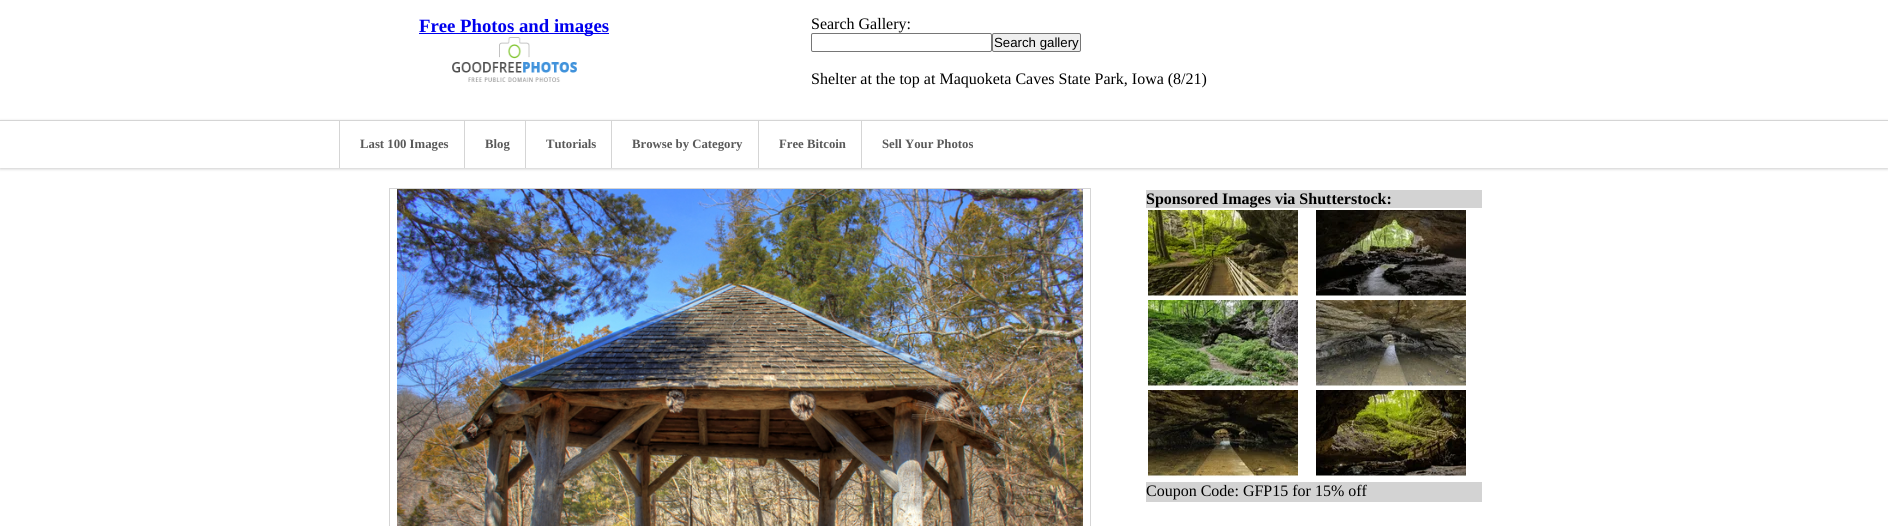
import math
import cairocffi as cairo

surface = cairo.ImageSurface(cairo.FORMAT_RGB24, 1888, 526)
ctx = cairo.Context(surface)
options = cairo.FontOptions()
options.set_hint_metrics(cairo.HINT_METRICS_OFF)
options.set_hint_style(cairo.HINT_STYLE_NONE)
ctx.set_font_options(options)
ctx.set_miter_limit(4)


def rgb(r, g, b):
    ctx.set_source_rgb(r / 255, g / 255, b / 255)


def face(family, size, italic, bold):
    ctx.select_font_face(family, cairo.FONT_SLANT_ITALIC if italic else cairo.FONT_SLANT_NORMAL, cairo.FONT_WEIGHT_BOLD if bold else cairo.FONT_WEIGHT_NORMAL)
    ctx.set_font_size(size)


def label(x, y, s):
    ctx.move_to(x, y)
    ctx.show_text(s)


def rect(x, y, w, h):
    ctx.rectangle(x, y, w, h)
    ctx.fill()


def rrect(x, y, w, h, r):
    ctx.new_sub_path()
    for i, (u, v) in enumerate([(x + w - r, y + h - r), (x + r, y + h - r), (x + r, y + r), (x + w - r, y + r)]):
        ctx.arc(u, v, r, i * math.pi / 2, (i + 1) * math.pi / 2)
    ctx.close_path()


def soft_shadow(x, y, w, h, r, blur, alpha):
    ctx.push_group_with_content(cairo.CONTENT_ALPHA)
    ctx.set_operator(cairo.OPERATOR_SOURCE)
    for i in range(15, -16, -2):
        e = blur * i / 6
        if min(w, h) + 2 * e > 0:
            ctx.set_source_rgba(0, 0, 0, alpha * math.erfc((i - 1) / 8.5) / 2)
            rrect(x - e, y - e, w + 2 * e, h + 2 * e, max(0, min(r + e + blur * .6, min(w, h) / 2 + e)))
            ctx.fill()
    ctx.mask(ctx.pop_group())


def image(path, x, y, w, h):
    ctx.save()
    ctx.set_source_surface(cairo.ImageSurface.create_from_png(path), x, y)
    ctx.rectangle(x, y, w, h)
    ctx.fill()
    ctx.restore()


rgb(255, 255, 255)
ctx.paint()
rgb(0, 0, 238)
rect(419, 33, 190, 1)
face('Liberation Serif', 18.75, 0, 1)
label(419, 32, 'Free Photos and images')
image('image0.png', 452, 37, 125, 45)
face('Liberation Serif', 16, 0, 0)
rgb(0, 0, 0)
label(811, 29, 'Search Gallery:')
rrect(811.5, 33.5, 180, 18, 1.5)
rgb(118, 118, 118)
ctx.set_line_width(1)
ctx.stroke()
rgb(239, 239, 239)
rrect(992.5, 33.5, 88, 18, 1.5)
ctx.fill_preserve()
rgb(118, 118, 118)
ctx.stroke()
face('Liberation Sans', 13.25, 0, 0)
rgb(0, 0, 0)
label(994, 47, 'Search gallery')
face('Liberation Serif', 16, 0, 0)
label(811, 84, 'Shelter at the top at Maquoketa Caves State Park, Iowa (8/21)')
ctx.save()
ctx.set_fill_rule(cairo.FILL_RULE_EVEN_ODD)
ctx.new_path()
ctx.move_to(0, 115)
ctx.line_to(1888, 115)
ctx.line_to(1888, 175)
ctx.line_to(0, 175)
ctx.close_path()
ctx.move_to(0, 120)
ctx.line_to(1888, 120)
ctx.line_to(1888, 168)
ctx.line_to(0, 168)
ctx.close_path()
ctx.clip()
rgb(0, 0, 0)
soft_shadow(0, 121, 1888, 48, 0, 1.5, 0.2)
ctx.restore()
rgb(213, 213, 213)
rect(0, 120, 1888, 1)
rect(339, 121, 1, 47)
face('Liberation Serif', 12.75, 0, 1)
rgb(89, 89, 89)
label(360, 148, 'Last 100 Images')
rgb(213, 213, 213)
rect(464, 121, 1, 47)
rgb(89, 89, 89)
label(485, 148, 'Blog')
rgb(213, 213, 213)
rect(525, 121, 1, 47)
rgb(89, 89, 89)
label(546, 148, 'Tutorials')
rgb(213, 213, 213)
rect(611, 121, 1, 47)
rgb(89, 89, 89)
label(632, 148, 'Browse by Category')
rgb(213, 213, 213)
rect(758, 121, 1, 47)
rgb(89, 89, 89)
label(779, 148, 'Free Bitcoin')
rgb(213, 213, 213)
rect(861, 121, 1, 47)
rgb(89, 89, 89)
label(882, 148, 'Sell Your Photos')
ctx.rectangle(389.5, 188.5, 701, 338)
rgb(213, 213, 213)
ctx.stroke()
image('image1.png', 397, 189, 686, 337)
rgb(211, 211, 211)
rect(1146, 190, 336, 18)
face('Liberation Serif', 16, 0, 1)
rgb(0, 0, 0)
label(1146, 204, 'Sponsored Images via Shutterstock:')
image('image2.png', 1148, 210, 150, 88)
image('image3.png', 1316, 210, 150, 86)
image('image4.png', 1148, 300, 150, 88)
image('image5.png', 1316, 300, 150, 87)
image('image6.png', 1148, 390, 150, 88)
image('image7.png', 1316, 390, 150, 87)
rgb(211, 211, 211)
rect(1146, 482, 336, 20)
face('Liberation Serif', 16, 0, 0)
rgb(0, 0, 0)
label(1146, 496, 'Coupon Code: GFP15 for 15% off')
surface.write_to_png('render.png')
